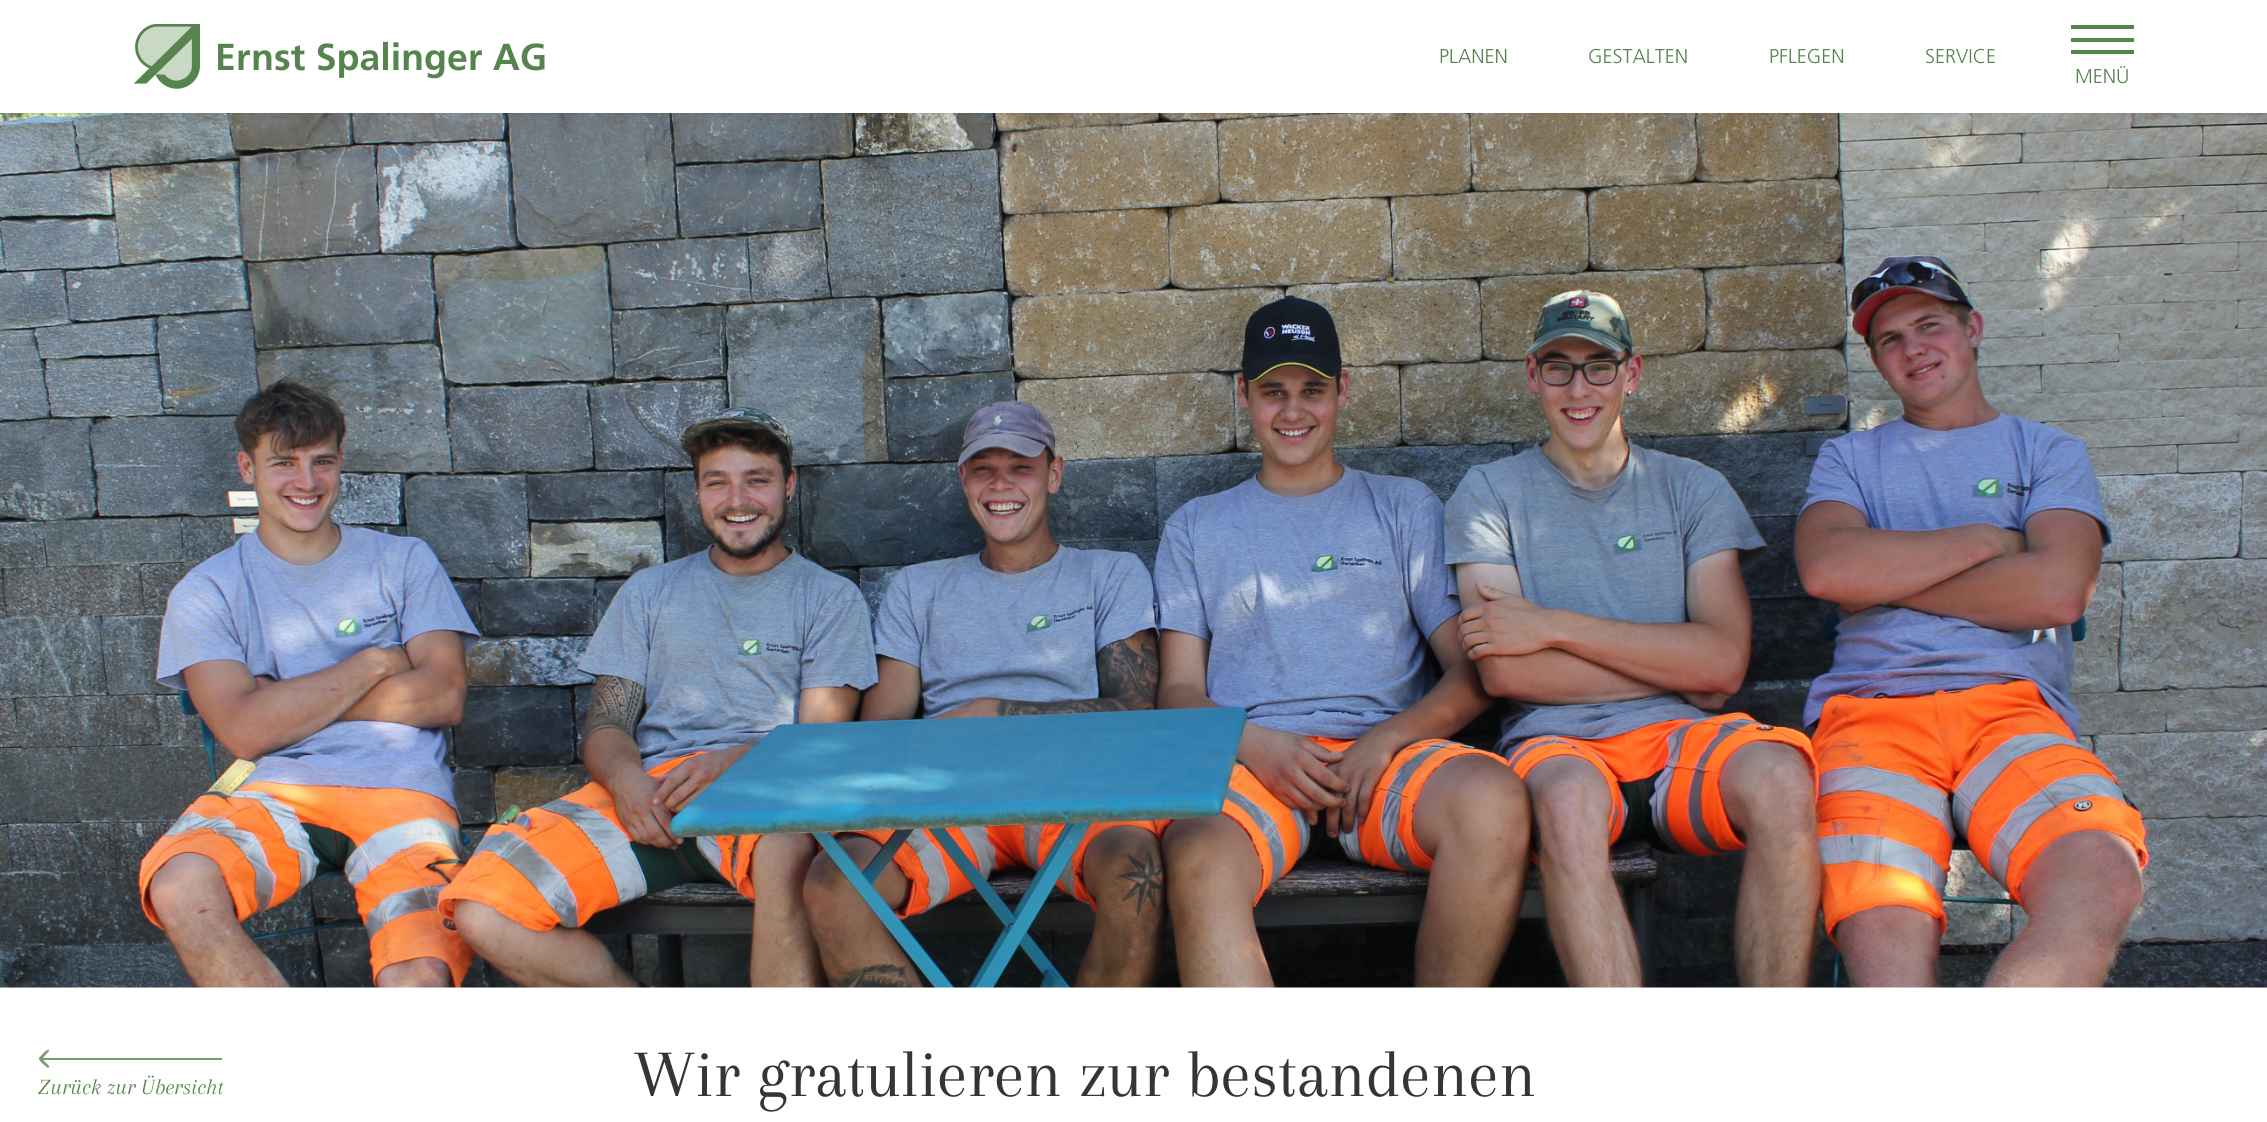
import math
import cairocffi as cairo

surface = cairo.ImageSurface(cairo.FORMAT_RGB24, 2267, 1122)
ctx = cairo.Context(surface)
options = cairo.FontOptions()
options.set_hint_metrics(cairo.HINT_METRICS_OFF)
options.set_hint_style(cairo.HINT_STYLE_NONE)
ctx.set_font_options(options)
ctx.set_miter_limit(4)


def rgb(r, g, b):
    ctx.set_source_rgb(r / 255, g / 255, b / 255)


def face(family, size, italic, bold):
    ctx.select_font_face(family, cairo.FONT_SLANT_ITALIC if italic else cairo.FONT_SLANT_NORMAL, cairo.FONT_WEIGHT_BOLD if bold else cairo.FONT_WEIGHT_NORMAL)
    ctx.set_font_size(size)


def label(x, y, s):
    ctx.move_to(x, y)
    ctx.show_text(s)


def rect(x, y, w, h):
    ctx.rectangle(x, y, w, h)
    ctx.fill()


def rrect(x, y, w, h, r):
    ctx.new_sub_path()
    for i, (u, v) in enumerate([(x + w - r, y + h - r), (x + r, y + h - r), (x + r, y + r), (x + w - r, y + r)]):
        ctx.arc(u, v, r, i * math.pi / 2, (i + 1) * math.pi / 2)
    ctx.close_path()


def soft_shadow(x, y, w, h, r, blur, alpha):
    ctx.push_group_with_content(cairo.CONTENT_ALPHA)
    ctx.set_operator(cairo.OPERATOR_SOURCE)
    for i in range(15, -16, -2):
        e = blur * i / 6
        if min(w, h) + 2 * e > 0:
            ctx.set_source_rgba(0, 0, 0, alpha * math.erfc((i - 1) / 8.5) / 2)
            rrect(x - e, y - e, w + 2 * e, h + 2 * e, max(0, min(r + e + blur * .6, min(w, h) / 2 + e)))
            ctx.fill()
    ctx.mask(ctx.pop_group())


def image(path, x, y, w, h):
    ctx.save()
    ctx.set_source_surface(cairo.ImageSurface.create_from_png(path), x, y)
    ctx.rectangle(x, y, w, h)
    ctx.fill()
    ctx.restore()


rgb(255, 255, 255)
ctx.paint()
image('image1.png', 0, 113, 2267, 875)
rgb(2, 2, 0)
soft_shadow(0, -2, 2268, 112, 0, 2.5, 0.8)
rgb(255, 255, 255)
rect(0, 0, 2267, 113)
image('image0.png', 134, 24, 411, 65)
face('Frutiger Light', 20, 0, 0)
rgb(86, 132, 78)
label(1439, 63, 'PLANEN')
label(1588, 63, 'GESTALTEN')
label(1769, 63, 'PFLEGEN')
label(1925, 63, 'SERVICE')
rect(2071, 25, 63, 4)
rect(2071, 38, 63, 4)
rect(2071, 50, 63, 4)
label(2075, 83, 'MENÜ')
rgb(120, 157, 113)
ctx.new_path()
ctx.move_to(39, 1058)
ctx.curve_to(38, 1059, 42, 1063, 43, 1064)
ctx.curve_to(44, 1064, 48, 1070, 49, 1067)
ctx.curve_to(50, 1066, 47, 1064, 46, 1063)
ctx.line_to(42, 1059)
ctx.line_to(49, 1051)
ctx.line_to(49, 1050)
ctx.curve_to(47, 1048, 40, 1057, 39, 1058)
ctx.close_path()
ctx.move_to(222, 1058)
ctx.line_to(40, 1058)
ctx.line_to(40, 1060)
ctx.line_to(222, 1060)
ctx.close_path()
ctx.fill()
face('Arapey', 22.5, 1, 0)
rgb(86, 132, 78)
label(38, 1094, 'Zurück zur Übersicht')
face('Arapey', 68.75, 0, 0)
rgb(53, 53, 51)
label(634, 1096, 'Wir gratulieren zur bestandenen')
surface.write_to_png('render.png')
